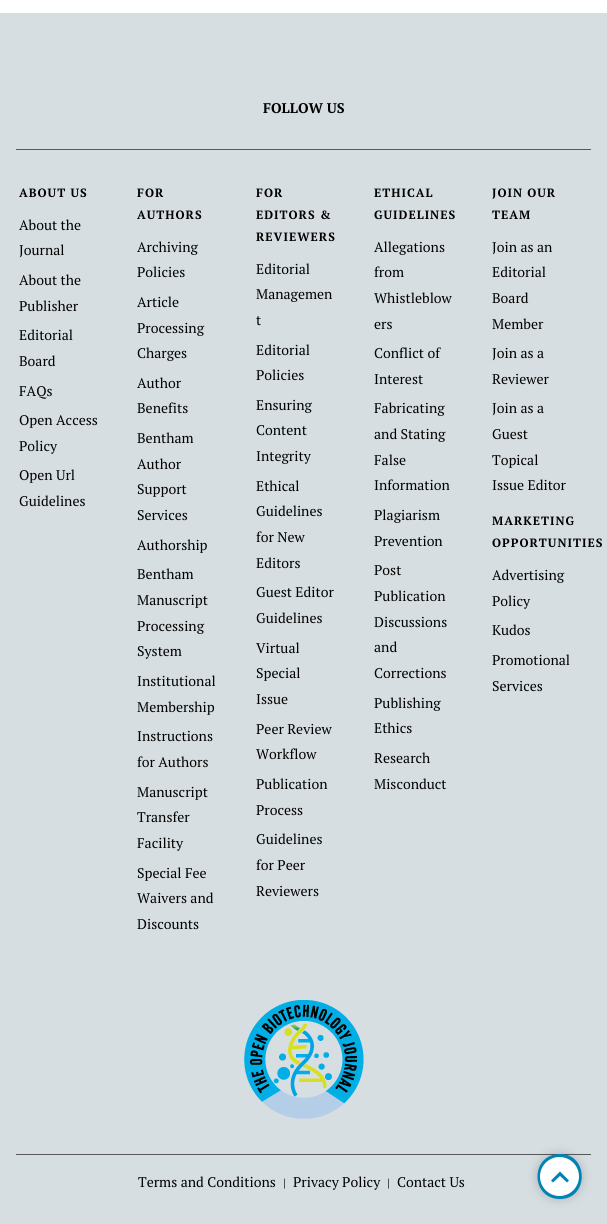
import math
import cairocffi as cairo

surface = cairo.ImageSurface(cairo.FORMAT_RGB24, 607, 1224)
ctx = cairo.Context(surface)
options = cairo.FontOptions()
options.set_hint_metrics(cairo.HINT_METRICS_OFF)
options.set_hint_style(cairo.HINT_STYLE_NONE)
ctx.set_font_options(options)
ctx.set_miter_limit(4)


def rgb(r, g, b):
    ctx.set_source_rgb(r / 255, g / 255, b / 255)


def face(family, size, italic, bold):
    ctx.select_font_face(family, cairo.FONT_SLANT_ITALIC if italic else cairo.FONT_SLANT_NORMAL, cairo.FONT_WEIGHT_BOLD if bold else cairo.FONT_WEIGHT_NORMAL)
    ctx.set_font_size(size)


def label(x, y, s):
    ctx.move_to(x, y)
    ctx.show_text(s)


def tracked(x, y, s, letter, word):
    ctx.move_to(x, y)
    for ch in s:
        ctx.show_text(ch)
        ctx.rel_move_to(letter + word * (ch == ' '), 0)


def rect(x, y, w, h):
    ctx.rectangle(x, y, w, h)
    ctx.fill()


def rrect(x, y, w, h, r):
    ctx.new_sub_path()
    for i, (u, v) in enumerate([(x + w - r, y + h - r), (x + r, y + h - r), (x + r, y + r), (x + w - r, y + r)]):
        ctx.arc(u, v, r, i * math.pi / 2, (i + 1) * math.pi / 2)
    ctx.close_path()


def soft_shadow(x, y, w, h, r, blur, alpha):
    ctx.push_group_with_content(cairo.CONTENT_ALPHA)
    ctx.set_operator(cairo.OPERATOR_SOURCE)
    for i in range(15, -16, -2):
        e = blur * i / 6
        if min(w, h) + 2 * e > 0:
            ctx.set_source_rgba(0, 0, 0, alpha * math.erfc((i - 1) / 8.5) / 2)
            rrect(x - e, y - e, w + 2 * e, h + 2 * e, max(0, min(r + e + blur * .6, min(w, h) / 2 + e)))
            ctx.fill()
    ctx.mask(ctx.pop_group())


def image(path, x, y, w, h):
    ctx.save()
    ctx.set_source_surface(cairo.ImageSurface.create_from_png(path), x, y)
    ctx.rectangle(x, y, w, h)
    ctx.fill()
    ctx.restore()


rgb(255, 255, 255)
ctx.paint()
rgb(215, 222, 225)
rect(0, 13, 607, 1211)
rgb(89, 89, 89)
rect(16, 149, 575, 1)
face('PT Serif', 14, 0, 1)
rgb(0, 0, 0)
label(263, 113, 'FOLLOW US')
face('PT Serif', 12, 0, 1)
tracked(19, 197, 'ABOUT US', 1, 0)
face('PT Serif', 14, 0, 0)
label(19, 230, 'About the')
label(19, 255, 'Journal')
label(19, 285, 'About the')
label(19, 311, 'Publisher')
label(19, 340, 'Editorial')
label(19, 366, 'Board')
label(19, 396, 'FAQs')
label(19, 425, 'Open Access')
label(19, 451, 'Policy')
label(19, 480, 'Open Url')
label(19, 506, 'Guidelines')
face('PT Serif', 12, 0, 1)
tracked(137, 197, 'FOR', 1, 0)
tracked(137, 219, 'AUTHORS', 1, 0)
face('PT Serif', 14, 0, 0)
label(137, 252, 'Archiving')
label(137, 277, 'Policies')
label(137, 307, 'Article')
label(137, 333, 'Processing')
label(137, 358, 'Charges')
label(137, 388, 'Author')
label(137, 413, 'Benefits')
label(137, 443, 'Bentham')
label(137, 469, 'Author')
label(137, 494, 'Support')
label(137, 520, 'Services')
label(137, 550, 'Authorship')
label(137, 579, 'Bentham')
label(137, 605, 'Manuscript')
label(137, 631, 'Processing')
label(137, 656, 'System')
label(137, 686, 'Institutional')
label(137, 712, 'Membership')
label(137, 741, 'Instructions')
label(137, 767, 'for Authors')
label(137, 797, 'Manuscript')
label(137, 822, 'Transfer')
label(137, 848, 'Facility')
label(137, 878, 'Special Fee')
label(137, 903, 'Waivers and')
label(137, 929, 'Discounts')
face('PT Serif', 12, 0, 1)
tracked(256, 197, 'FOR', 1, 0)
tracked(256, 219, 'EDITORS &', 1, 0)
tracked(256, 241, 'REVIEWERS', 1, 0)
face('PT Serif', 14, 0, 0)
label(256, 274, 'Editorial')
label(256, 299, 'Managemen')
label(256, 325, 't')
label(256, 355, 'Editorial')
label(256, 380, 'Policies')
label(256, 410, 'Ensuring')
label(256, 435, 'Content')
label(256, 461, 'Integrity')
label(256, 491, 'Ethical')
label(256, 516, 'Guidelines')
label(256, 542, 'for New')
label(256, 568, 'Editors')
label(256, 597, 'Guest Editor')
label(256, 623, 'Guidelines')
label(256, 653, 'Virtual')
label(256, 678, 'Special')
label(256, 704, 'Issue')
label(256, 734, 'Peer Review')
label(256, 759, 'Workflow')
label(256, 789, 'Publication')
label(256, 815, 'Process')
label(256, 844, 'Guidelines')
label(256, 870, 'for Peer')
label(256, 896, 'Reviewers')
face('PT Serif', 12, 0, 1)
tracked(374, 197, 'ETHICAL', 1, 0)
tracked(374, 219, 'GUIDELINES', 1, 0)
face('PT Serif', 14, 0, 0)
label(374, 252, 'Allegations')
label(374, 277, 'from')
label(374, 303, 'Whistleblow')
label(374, 329, 'ers')
label(374, 358, 'Conflict of')
label(374, 384, 'Interest')
label(374, 413, 'Fabricating')
label(374, 439, 'and Stating')
label(374, 465, 'False')
label(374, 490, 'Information')
label(374, 520, 'Plagiarism')
label(374, 546, 'Prevention')
label(374, 575, 'Post')
label(374, 601, 'Publication')
label(374, 627, 'Discussions')
label(374, 652, 'and')
label(374, 678, 'Corrections')
label(374, 708, 'Publishing')
label(374, 733, 'Ethics')
label(374, 763, 'Research')
label(374, 789, 'Misconduct')
face('PT Serif', 12, 0, 1)
tracked(492, 197, 'JOIN OUR', 1, 0)
tracked(492, 219, 'TEAM', 1, 0)
face('PT Serif', 14, 0, 0)
label(492, 252, 'Join as an')
label(492, 277, 'Editorial')
label(492, 303, 'Board')
label(492, 329, 'Member')
label(492, 358, 'Join as a')
label(492, 384, 'Reviewer')
label(492, 413, 'Join as a')
label(492, 439, 'Guest')
label(492, 465, 'Topical')
label(492, 490, 'Issue Editor')
face('PT Serif', 12, 0, 1)
tracked(492, 525, 'MARKETING', 1, 0)
tracked(492, 547, 'OPPORTUNITIES', 1, 0)
face('PT Serif', 14, 0, 0)
label(492, 580, 'Advertising')
label(492, 606, 'Policy')
label(492, 635, 'Kudos')
label(492, 665, 'Promotional')
label(492, 691, 'Services')
image('image0.png', 244, 1000, 120, 119)
rgb(89, 89, 89)
rect(16, 1154, 575, 1)
rgb(0, 0, 0)
label(138, 1187, 'Terms and Conditions')
face('PT Serif', 12, 0, 0)
label(283, 1187, '|')
face('PT Serif', 14, 0, 0)
label(293, 1187, 'Privacy Policy')
face('PT Serif', 12, 0, 0)
label(387, 1187, '|')
face('PT Serif', 14, 0, 0)
label(397, 1187, 'Contact Us')
rgb(0, 0, 0)
soft_shadow(537, 1154, 45, 45, 22.5, 5, 0.2)
rgb(0, 131, 180)
ctx.new_path()
ctx.move_to(560, 1176)
ctx.line_to(560, 1154)
ctx.curve_to(589, 1154, 589, 1199, 560, 1199)
ctx.curve_to(530, 1199, 530, 1154, 560, 1154)
ctx.close_path()
ctx.fill()
rgb(255, 255, 255)
ctx.arc(559.5, 1176.5, 19.5, 0, 2 * math.pi)
ctx.fill()
rgb(0, 131, 180)
ctx.new_path()
ctx.move_to(567, 1182.5)
ctx.line_to(569, 1180.5)
ctx.line_to(560, 1171.5)
ctx.line_to(551, 1180.5)
ctx.line_to(553, 1182.5)
ctx.line_to(560, 1176)
ctx.close_path()
ctx.fill()
surface.write_to_png('render.png')
